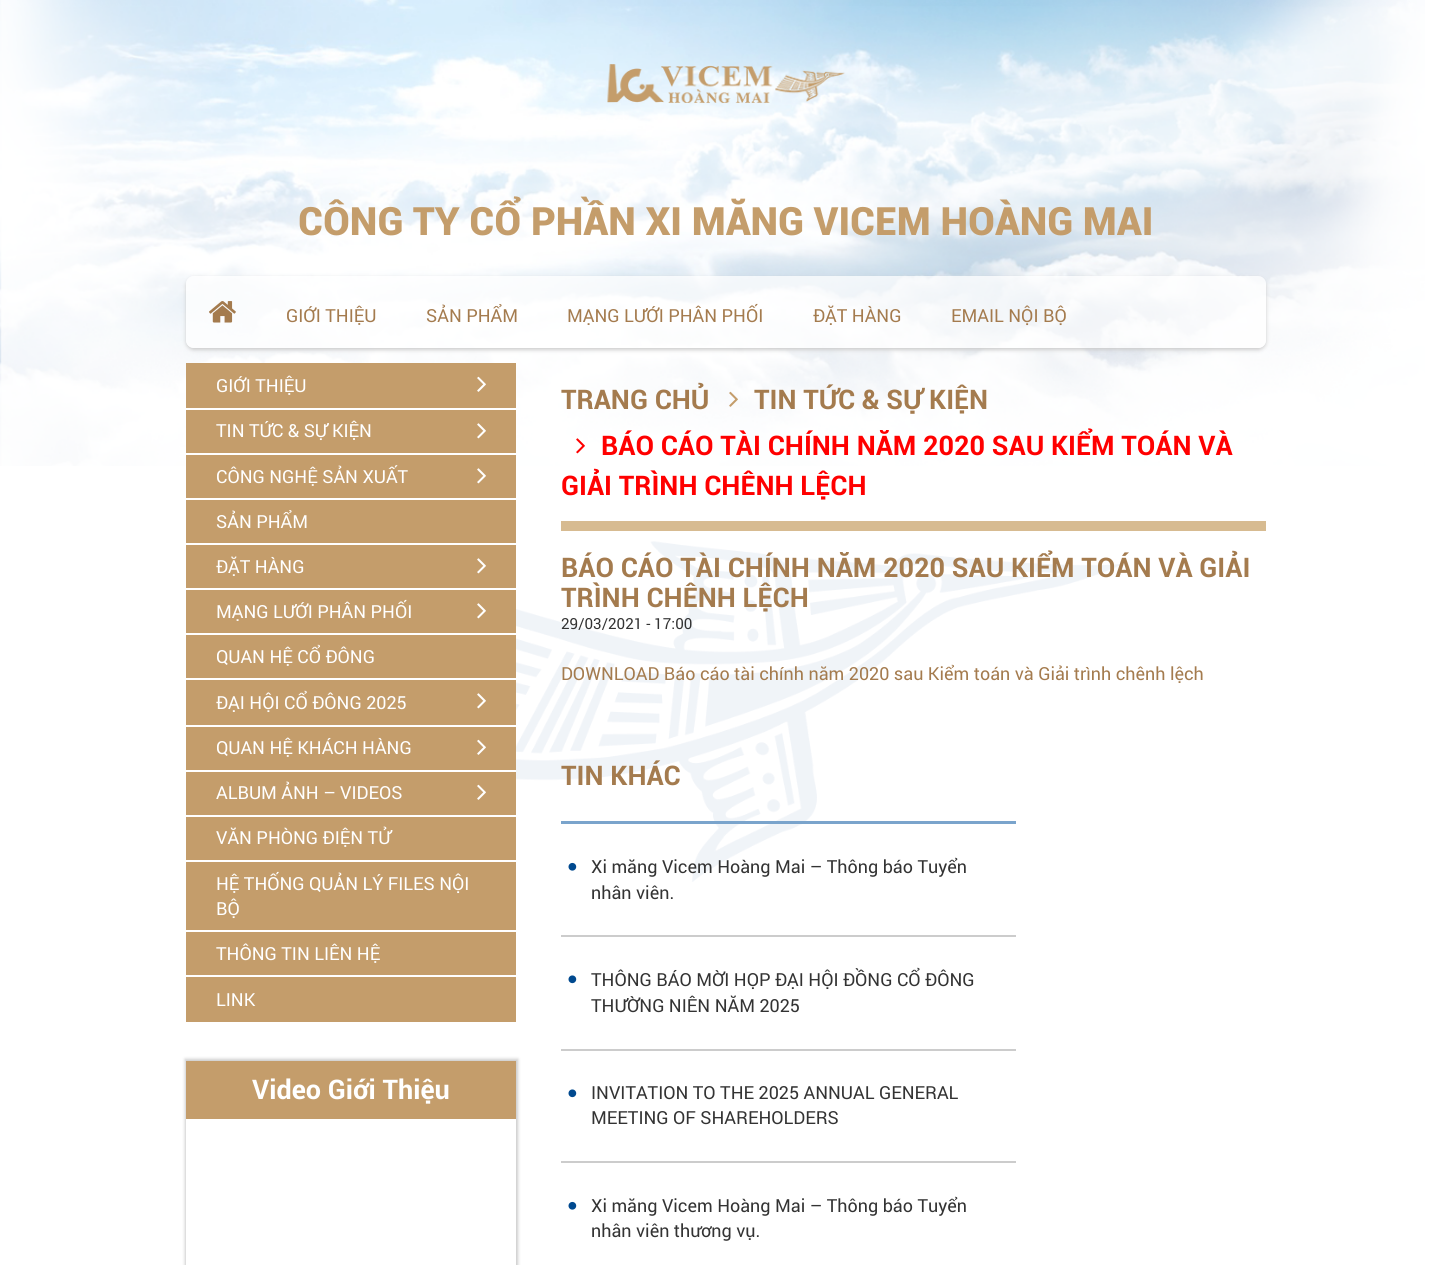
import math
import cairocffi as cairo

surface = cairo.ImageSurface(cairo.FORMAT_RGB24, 1451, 1265)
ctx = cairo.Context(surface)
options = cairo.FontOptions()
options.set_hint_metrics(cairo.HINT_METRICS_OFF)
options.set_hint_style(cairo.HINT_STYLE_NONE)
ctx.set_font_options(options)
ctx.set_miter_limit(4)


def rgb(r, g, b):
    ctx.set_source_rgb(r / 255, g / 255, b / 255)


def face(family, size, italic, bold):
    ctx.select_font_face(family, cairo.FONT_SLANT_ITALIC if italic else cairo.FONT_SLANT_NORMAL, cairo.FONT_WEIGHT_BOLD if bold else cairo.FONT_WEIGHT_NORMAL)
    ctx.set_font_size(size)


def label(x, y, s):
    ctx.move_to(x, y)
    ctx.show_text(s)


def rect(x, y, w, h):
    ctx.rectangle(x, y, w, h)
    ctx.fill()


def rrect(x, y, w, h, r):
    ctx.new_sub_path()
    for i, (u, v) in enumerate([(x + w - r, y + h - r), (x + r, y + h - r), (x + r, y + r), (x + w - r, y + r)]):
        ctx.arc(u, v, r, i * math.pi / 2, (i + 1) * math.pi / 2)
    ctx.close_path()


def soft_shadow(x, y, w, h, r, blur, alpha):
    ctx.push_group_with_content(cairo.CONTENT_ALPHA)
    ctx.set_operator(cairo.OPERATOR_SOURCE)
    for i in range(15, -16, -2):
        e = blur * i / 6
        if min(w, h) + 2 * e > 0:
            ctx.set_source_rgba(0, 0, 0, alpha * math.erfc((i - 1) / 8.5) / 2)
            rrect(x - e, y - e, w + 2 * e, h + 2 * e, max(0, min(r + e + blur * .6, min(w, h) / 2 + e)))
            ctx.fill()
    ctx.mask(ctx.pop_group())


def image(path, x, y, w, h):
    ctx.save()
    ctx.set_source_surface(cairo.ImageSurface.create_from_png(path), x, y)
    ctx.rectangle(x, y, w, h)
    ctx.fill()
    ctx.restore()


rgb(255, 255, 255)
ctx.paint()
image('image0.png', 0, 0, 1425, 466)
image('image1.png', 607, 64, 238, 39)
face('Roboto Black', 39, 0, 0)
rgb(196, 157, 107)
label(298, 235, 'CÔNG TY CỔ PHẦN XI MĂNG VICEM HOÀNG MAI')
ctx.save()
ctx.set_fill_rule(cairo.FILL_RULE_EVEN_ODD)
ctx.new_path()
ctx.move_to(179, 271)
ctx.line_to(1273, 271)
ctx.line_to(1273, 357)
ctx.line_to(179, 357)
ctx.close_path()
ctx.move_to(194, 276)
ctx.line_to(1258, 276)
ctx.curve_to(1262.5, 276, 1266, 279.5, 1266, 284)
ctx.line_to(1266, 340)
ctx.curve_to(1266, 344.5, 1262.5, 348, 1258, 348)
ctx.line_to(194, 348)
ctx.curve_to(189.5, 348, 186, 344.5, 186, 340)
ctx.line_to(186, 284)
ctx.curve_to(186, 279.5, 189.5, 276, 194, 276)
ctx.close_path()
ctx.clip()
rgb(204, 204, 204)
soft_shadow(186, 278, 1080, 72, 8, 2, 1)
ctx.restore()
ctx.set_source_rgba(1, 1, 1, 0.75)
rrect(186, 276, 1080, 72, 8)
ctx.fill()
image('image2.png', 209, 301, 27, 22)
face('Roboto', 18, 0, 0)
rgb(164, 123, 78)
label(286, 322, 'GIỚI THIỆU')
label(426, 322, 'SẢN PHẨM')
label(567, 322, 'MẠNG LƯỚI PHÂN PHỐI')
label(813, 322, 'ĐẶT HÀNG')
label(951, 322, 'EMAIL NỘI BỘ')
image('image3.png', 516, 541, 606, 341)
rgb(196, 157, 107)
rect(186, 363, 330, 659)
rgb(255, 255, 255)
rect(186, 408, 330, 2)
label(216, 392, 'GIỚI THIỆU')
image('image4.png', 477, 376, 9, 16)
rect(186, 453, 330, 2)
label(216, 437, 'TIN TỨC & SỰ KIỆN')
image('image5.png', 477, 423, 9, 16)
rect(186, 498, 330, 2)
label(216, 483, 'CÔNG NGHỆ SẢN XUẤT')
image('image5.png', 477, 468, 9, 16)
rect(186, 543, 330, 2)
label(216, 528, 'SẢN PHẨM')
rect(186, 588, 330, 2)
label(216, 573, 'ĐẶT HÀNG')
image('image5.png', 477, 558, 9, 16)
rect(186, 633, 330, 2)
label(216, 618, 'MẠNG LƯỚI PHÂN PHỐI')
image('image5.png', 477, 603, 9, 16)
rect(186, 678, 330, 2)
label(216, 663, 'QUAN HỆ CỔ ĐÔNG')
rect(186, 725, 330, 2)
label(216, 709, 'ĐẠI HỘI CỔ ĐÔNG 2025')
image('image5.png', 477, 693, 9, 16)
rect(186, 770, 330, 2)
label(216, 754, 'QUAN HỆ KHÁCH HÀNG')
image('image4.png', 477, 739, 9, 16)
rect(186, 815, 330, 2)
label(216, 799, 'ALBUM ẢNH – VIDEOS')
image('image4.png', 477, 784, 9, 16)
rect(186, 860, 330, 2)
label(216, 844, 'VĂN PHÒNG ĐIỆN TỬ')
rect(186, 930, 330, 2)
label(216, 890, 'HỆ THỐNG QUẢN LÝ FILES NỘI')
label(216, 915, 'BỘ')
rect(186, 975, 330, 2)
label(216, 960, 'THÔNG TIN LIÊN HỆ')
label(216, 1006, 'LINK')
ctx.save()
ctx.set_fill_rule(cairo.FILL_RULE_EVEN_ODD)
ctx.new_path()
ctx.move_to(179, 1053)
ctx.line_to(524, 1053)
ctx.line_to(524, 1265)
ctx.line_to(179, 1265)
ctx.close_path()
ctx.move_to(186, 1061)
ctx.line_to(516, 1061)
ctx.line_to(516, 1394)
ctx.line_to(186, 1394)
ctx.close_path()
ctx.clip()
rgb(204, 204, 204)
soft_shadow(185, 1059, 333, 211, 0, 1.5, 1)
ctx.restore()
rgb(196, 157, 107)
rect(186, 1061, 330, 58)
face('Roboto', 27, 0, 1)
rgb(255, 255, 255)
label(252, 1099, 'Video Giới Thiệu')
rgb(164, 123, 78)
label(561, 409, 'TRANG CHỦ')
image('image6.png', 729, 391, 9, 16)
label(754, 409, 'TIN TỨC & SỰ KIỆN')
image('image7.png', 576, 438, 9, 16)
rgb(255, 0, 0)
label(601, 455, 'BÁO CÁO TÀI CHÍNH NĂM 2020 SAU KIỂM TOÁN VÀ')
label(561, 495, 'GIẢI TRÌNH CHÊNH LỆCH')
rgb(215, 187, 145)
rect(561, 521, 705, 10)
rgb(164, 123, 78)
label(561, 577, 'BÁO CÁO TÀI CHÍNH NĂM 2020 SAU KIỂM TOÁN VÀ GIẢI')
label(561, 607, 'TRÌNH CHÊNH LỆCH')
face('Roboto', 15.25, 0, 0)
rgb(51, 51, 51)
label(561, 629, '29/03/2021 - 17:00')
face('Roboto', 18, 0, 0)
rgb(164, 123, 78)
label(561, 680, 'DOWNLOAD Báo cáo tài chính năm 2020 sau Kiểm toán và Giải trình chênh lệch')
rgb(122, 164, 204)
rect(561, 821, 455, 3)
face('Roboto', 27, 0, 1)
rgb(164, 123, 78)
label(561, 785, 'TIN KHÁC')
rgb(204, 204, 204)
rect(561, 935, 455, 2)
image('image8.png', 568, 862, 9, 9)
face('Roboto', 18, 0, 0)
rgb(51, 51, 51)
label(591, 873, 'Xi măng Vicem Hoàng Mai – Thông báo Tuyển')
label(591, 899, 'nhân viên.')
rgb(204, 204, 204)
rect(561, 1049, 455, 2)
image('image9.png', 568, 975, 9, 9)
rgb(51, 51, 51)
label(591, 986, 'THÔNG BÁO MỜI HỌP ĐẠI HỘI ĐỒNG CỔ ĐÔNG')
label(591, 1012, 'THƯỜNG NIÊN NĂM 2025')
rgb(204, 204, 204)
rect(561, 1161, 455, 2)
image('image9.png', 568, 1089, 9, 9)
rgb(51, 51, 51)
label(591, 1099, 'INVITATION TO THE 2025 ANNUAL GENERAL')
label(591, 1124, 'MEETING OF SHAREHOLDERS')
image('image8.png', 568, 1201, 9, 9)
label(591, 1212, 'Xi măng Vicem Hoàng Mai – Thông báo Tuyển')
label(591, 1237, 'nhân viên thương vụ.')
surface.write_to_png('render.png')
